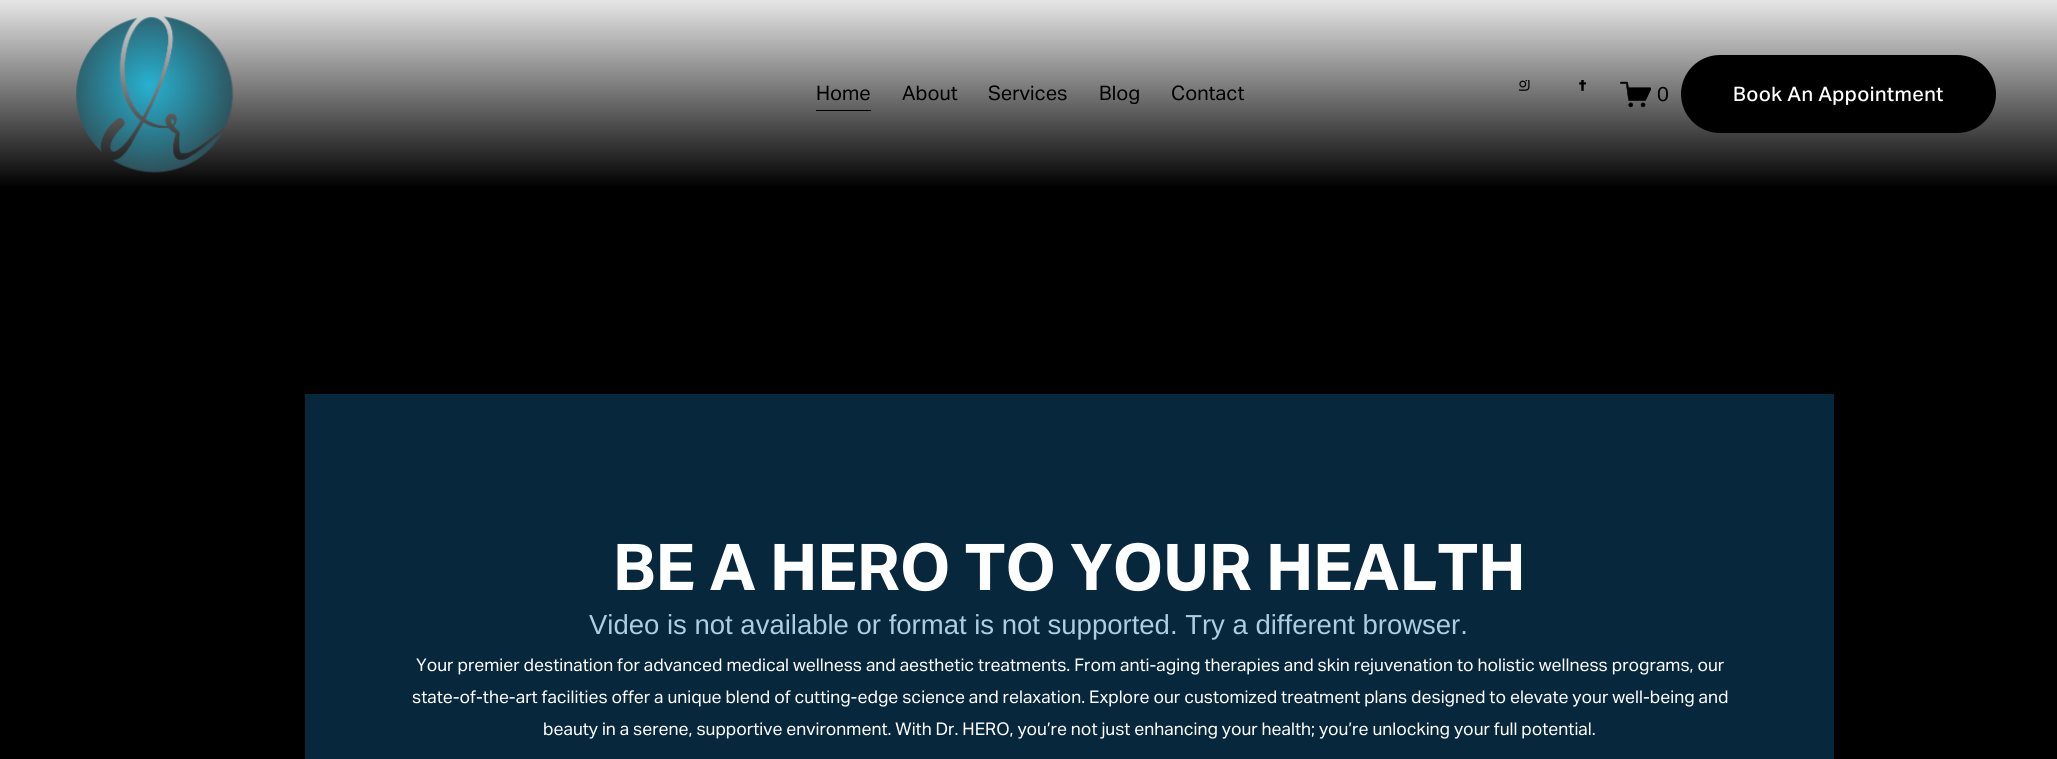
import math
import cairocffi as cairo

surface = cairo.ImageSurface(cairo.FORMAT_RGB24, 2057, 759)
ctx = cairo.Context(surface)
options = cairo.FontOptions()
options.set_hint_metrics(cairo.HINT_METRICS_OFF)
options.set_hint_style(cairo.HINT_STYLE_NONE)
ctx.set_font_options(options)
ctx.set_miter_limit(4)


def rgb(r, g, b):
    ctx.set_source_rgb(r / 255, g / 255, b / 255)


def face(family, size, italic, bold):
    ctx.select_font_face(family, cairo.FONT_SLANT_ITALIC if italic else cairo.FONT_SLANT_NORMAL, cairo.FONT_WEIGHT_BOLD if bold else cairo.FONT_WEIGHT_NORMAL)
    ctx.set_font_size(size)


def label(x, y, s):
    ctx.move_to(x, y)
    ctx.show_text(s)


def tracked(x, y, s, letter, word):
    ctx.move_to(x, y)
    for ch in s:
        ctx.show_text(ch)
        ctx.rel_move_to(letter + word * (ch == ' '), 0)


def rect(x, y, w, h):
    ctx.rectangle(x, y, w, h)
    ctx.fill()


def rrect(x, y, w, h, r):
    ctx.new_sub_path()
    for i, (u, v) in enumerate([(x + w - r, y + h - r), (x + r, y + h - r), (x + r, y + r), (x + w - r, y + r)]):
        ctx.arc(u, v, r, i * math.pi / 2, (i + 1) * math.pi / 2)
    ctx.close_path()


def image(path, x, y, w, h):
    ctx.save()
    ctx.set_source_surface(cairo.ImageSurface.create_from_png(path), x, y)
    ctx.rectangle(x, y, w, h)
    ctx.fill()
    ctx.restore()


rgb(0, 0, 0)
ctx.paint()
gradient = cairo.LinearGradient(1029, 0, 1029, 188)
gradient.add_color_stop_rgba(0, 0.902, 0.902, 0.902, 1)
gradient.add_color_stop_rgba(1, 0, 0, 0, 1)
ctx.set_source(gradient)
rect(0, 0, 2057, 186)
image('image0.png', 76, 16, 158, 157)
rgb(0, 0, 0)
rect(816, 110, 55, 1)
face('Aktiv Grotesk', 20, 0, 0)
label(816, 100, 'Home')
label(902, 100, 'About')
label(988, 100, 'Services')
label(1099, 100, 'Blog')
label(1171, 100, 'Contact')
image('image1.png', 1519, 80, 11, 11)
image('image2.png', 1579, 80, 8, 11)
image('image3.png', 1620, 81, 31, 27)
label(1657, 101, '0')
rrect(1681, 55, 315, 78, 39)
ctx.fill()
face('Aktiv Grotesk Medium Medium', 20, 0, 0)
rgb(255, 255, 255)
tracked(1733, 101, 'Book An Appointment', 0.4, 0)
rgb(7, 39, 61)
rect(305, 394, 1529, 365)
face('Aktiv Grotesk', 64.5, 0, 1)
rgb(255, 255, 255)
label(613, 590, 'BE A HERO TO YOUR HEALTH')
face('Aktiv Grotesk', 17.53, 0, 0)
label(416, 671, 'Your premier destination for advanced medical wellness and aesthetic treatments. From anti-aging therapies and skin rejuvenation to holistic wellness programs, our')
label(412, 703, 'state-of-the-art facilities offer a unique blend of cutting-edge science and relaxation. Explore our customized treatment plans designed to elevate your well-being and')
label(543, 735, 'beauty in a serene, supportive environment. With Dr. HERO, you’re not just enhancing your health; you’re unlocking your full potential.')
face('Liberation Sans', 27.5, 0, 0)
rgb(173, 205, 227)
label(589, 634, 'Video is not available or format is not supported. Try a different browser.')
surface.write_to_png('render.png')
